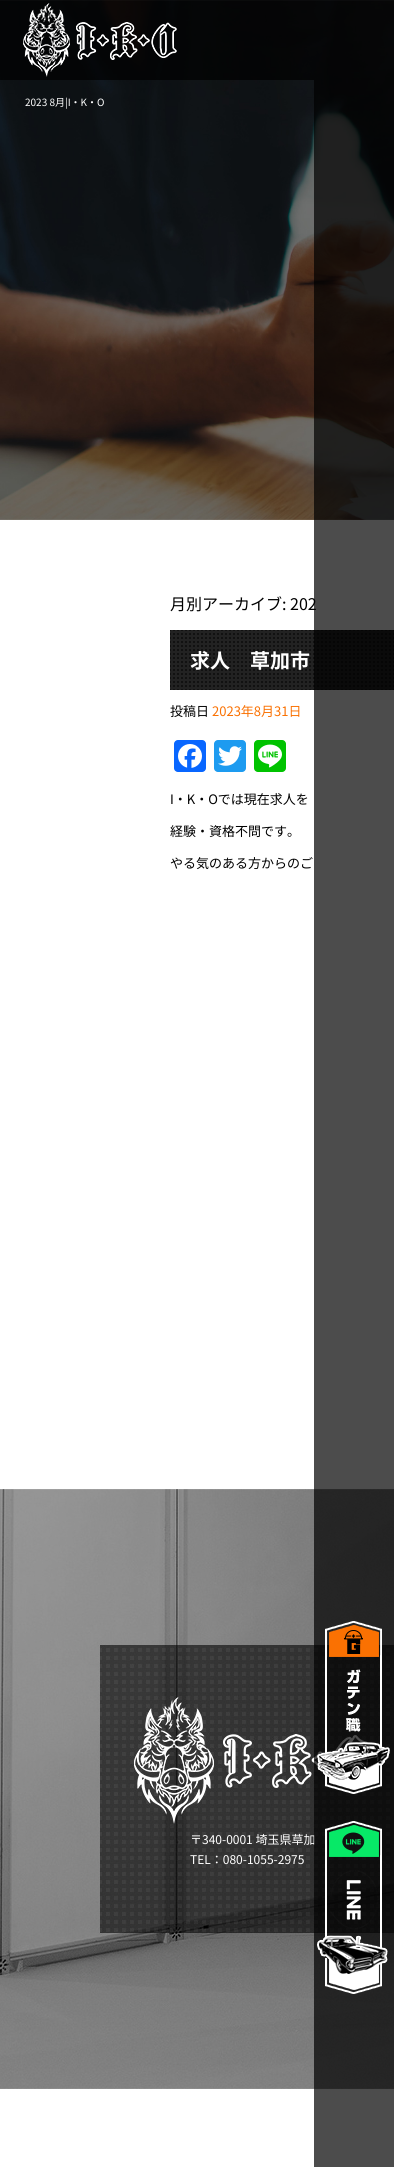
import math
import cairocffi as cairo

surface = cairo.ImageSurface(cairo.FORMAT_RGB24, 394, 2167)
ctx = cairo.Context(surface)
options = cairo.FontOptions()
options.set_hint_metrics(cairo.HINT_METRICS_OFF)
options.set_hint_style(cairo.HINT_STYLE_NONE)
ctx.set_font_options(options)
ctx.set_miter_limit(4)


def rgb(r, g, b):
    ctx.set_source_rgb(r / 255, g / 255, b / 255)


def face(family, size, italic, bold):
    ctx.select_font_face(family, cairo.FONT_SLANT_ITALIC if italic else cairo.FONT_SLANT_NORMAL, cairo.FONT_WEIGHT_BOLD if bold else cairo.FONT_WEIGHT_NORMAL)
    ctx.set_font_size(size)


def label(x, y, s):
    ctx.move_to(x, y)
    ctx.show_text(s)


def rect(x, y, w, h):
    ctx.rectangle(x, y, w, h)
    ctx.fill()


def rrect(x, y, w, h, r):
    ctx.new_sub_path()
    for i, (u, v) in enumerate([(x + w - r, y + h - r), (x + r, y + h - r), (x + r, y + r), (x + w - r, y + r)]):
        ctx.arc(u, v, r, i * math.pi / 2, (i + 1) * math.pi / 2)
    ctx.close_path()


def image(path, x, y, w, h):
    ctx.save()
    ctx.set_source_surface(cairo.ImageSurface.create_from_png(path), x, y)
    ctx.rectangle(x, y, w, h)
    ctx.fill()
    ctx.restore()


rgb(255, 255, 255)
ctx.paint()
image('image0.png', 0, 0, 394, 520)
ctx.set_source_rgba(0, 0, 0, 0.7)
rect(0, 0, 394, 80)
image('image1.png', 23, 3, 154, 74)
face('Noto Sans JP', 10, 0, 0)
rgb(255, 255, 255)
label(25, 106, '2023 8月|I・K・O')
face('Noto Sans JP', 16, 0, 0)
rgb(0, 0, 0)
label(170, 610, '月別アーカイブ: 202')
image('image2.png', 170, 630, 224, 60)
face('Noto Sans JP', 20, 0, 1)
rgb(255, 255, 255)
label(190, 668, '求人　草加市')
face('Noto Sans JP', 13, 0, 0)
rgb(0, 0, 0)
label(170, 716, '投稿日')
rgb(250, 113, 2)
label(212, 716, '2023年8月31日')
rgb(8, 102, 255)
rrect(174, 740, 32, 32, 4)
ctx.fill()
image('image3.png', 178, 744, 24, 24)
rgb(29, 155, 240)
rrect(214, 740, 32, 32, 4)
ctx.fill()
image('image4.png', 218, 746, 24, 20)
rgb(0, 195, 0)
rrect(254, 740, 32, 32, 4)
ctx.fill()
image('image5.png', 258, 744, 24, 24)
rgb(0, 0, 0)
label(170, 804, 'I・K・Oでは現在求人を')
label(170, 836, '経験・資格不問です。')
label(170, 868, 'やる気のある方からのご')
image('image6.png', 0, 1489, 394, 600)
face('Noto Sans JP', 12, 0, 0)
rgb(255, 255, 255)
label(190, 1844, '〒340-0001 埼玉県草加')
ctx.set_source_rgba(0, 0, 0, 0.7)
rect(314, 80, 80, 2087)
image('image7.png', 317, 1621, 73, 173)
image('image8.png', 317, 1821, 71, 173)
rgb(255, 255, 255)
label(190, 1864, 'TEL：080-1055-2975')
surface.write_to_png('render.png')
